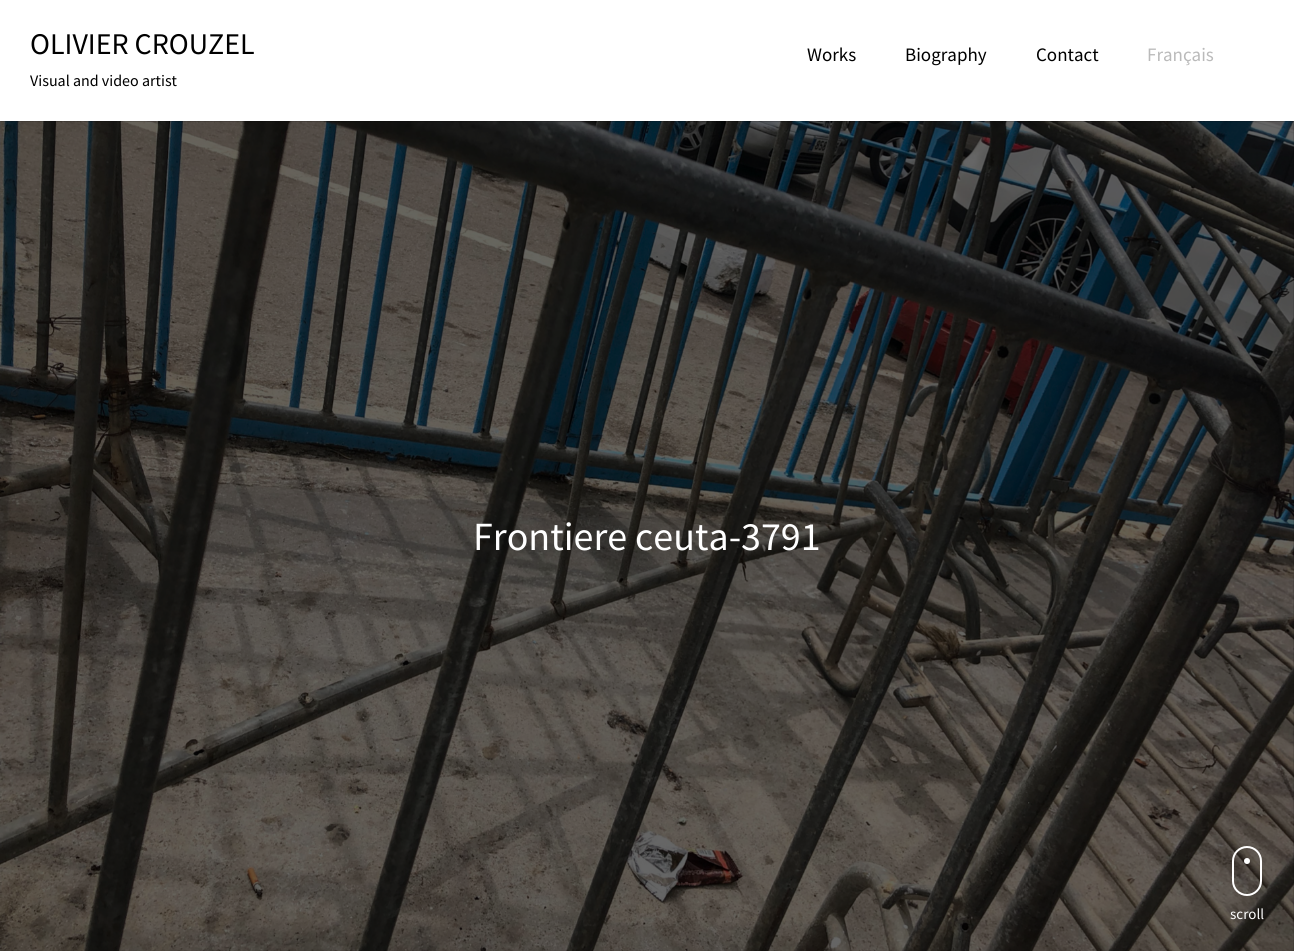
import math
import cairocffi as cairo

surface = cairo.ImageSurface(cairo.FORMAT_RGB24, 1294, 951)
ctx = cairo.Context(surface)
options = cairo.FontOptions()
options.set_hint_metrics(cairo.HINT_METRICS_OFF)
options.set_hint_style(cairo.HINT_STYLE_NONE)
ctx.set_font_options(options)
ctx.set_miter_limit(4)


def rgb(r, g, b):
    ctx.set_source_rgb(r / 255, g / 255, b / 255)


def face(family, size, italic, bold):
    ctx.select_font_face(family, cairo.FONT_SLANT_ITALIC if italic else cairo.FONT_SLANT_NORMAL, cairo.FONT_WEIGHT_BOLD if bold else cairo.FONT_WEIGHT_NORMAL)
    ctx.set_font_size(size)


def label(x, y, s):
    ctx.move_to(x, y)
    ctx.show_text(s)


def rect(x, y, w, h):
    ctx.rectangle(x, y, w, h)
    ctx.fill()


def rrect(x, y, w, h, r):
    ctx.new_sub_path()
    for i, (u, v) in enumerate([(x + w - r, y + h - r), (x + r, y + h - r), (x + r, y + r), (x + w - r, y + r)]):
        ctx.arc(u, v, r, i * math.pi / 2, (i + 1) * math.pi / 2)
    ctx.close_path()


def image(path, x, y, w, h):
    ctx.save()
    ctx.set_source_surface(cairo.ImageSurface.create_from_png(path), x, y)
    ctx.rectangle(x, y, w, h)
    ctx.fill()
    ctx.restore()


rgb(255, 255, 255)
ctx.paint()
face('Source Sans Pro', 30, 0, 0)
rgb(0, 0, 0)
label(30, 54, 'OLIVIER CROUZEL')
face('Source Sans Pro', 16, 0, 0)
label(30, 86, 'Visual and video artist')
face('Source Sans Pro', 19, 0, 0)
label(807, 61, 'Works')
label(905, 61, 'Biography')
label(1036, 61, 'Contact')
rgb(186, 186, 186)
label(1147, 61, 'Français')
rgb(0, 0, 0)
rect(0, 121, 1294, 830)
image('image0.png', 0, 121, 1294, 830)
face('Source Sans Pro', 40, 0, 0)
rgb(255, 255, 255)
label(473, 550, 'Frontiere ceuta-3791')
rrect(1233, 847, 28, 48, 14)
ctx.stroke()
ctx.arc(1247, 861, 3, 0, 2 * math.pi)
ctx.fill()
face('Source Sans Pro', 15, 0, 0)
label(1230, 919, 'scroll')
surface.write_to_png('render.png')
